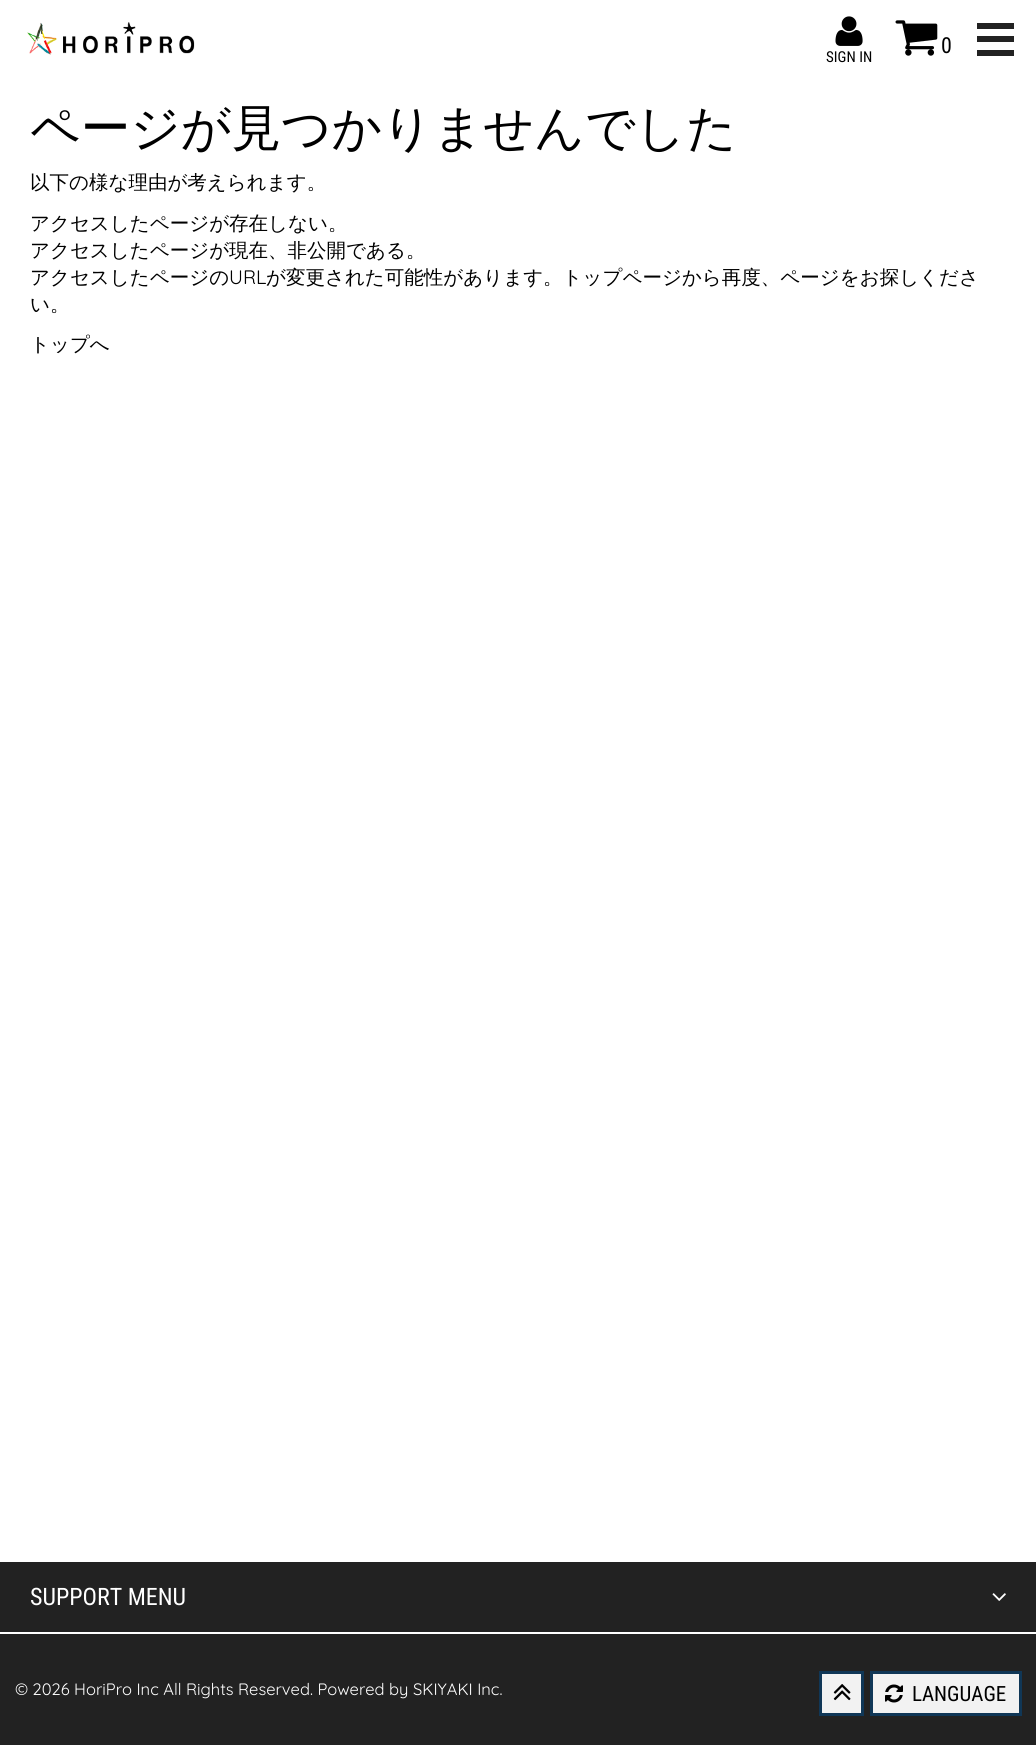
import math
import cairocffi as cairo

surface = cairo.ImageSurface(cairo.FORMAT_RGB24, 1036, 1745)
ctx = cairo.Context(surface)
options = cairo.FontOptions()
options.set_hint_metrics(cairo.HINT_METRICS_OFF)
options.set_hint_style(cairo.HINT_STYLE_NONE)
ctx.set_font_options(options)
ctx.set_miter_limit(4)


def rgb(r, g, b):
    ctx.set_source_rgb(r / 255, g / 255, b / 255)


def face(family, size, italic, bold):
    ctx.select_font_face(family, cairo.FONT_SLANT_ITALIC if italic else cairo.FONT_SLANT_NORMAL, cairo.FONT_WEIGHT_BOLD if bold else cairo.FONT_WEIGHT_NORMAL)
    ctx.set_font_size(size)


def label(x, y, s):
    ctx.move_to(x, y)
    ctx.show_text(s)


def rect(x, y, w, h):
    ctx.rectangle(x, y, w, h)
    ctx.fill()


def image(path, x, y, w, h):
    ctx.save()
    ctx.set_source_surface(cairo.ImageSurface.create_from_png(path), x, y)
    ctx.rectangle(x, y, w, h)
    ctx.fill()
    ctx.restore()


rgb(255, 255, 255)
ctx.paint()
image('image0.png', 27, 22, 168, 33)
image('image1.png', 895, 20, 43, 36)
face('Roboto Condensed', 22, 0, 0)
rgb(0, 0, 0)
label(941, 53, '0')
image('image2.png', 835, 16, 28, 30)
face('Roboto Condensed', 15, 0, 0)
label(826, 62, 'SIGN IN')
rgb(34, 34, 34)
rect(977, 23, 37, 6)
rect(977, 36, 37, 6)
rect(977, 50, 37, 6)
face('WenQuanYi Zen Hei Medium', 49.5, 0, 0)
rgb(0, 0, 0)
label(30, 145, 'ページが見つかりませんでした')
face('WenQuanYi Zen Hei Medium', 19.5, 0, 0)
label(30, 189, '以下の様な理由が考えられます。')
label(30, 230, 'アクセスしたページが存在しない。')
label(30, 257, 'アクセスしたページが現在、非公開である。')
label(30, 284, 'アクセスしたページの')
face('Quicksand', 19.5, 0, 0)
label(229, 284, 'URL')
face('WenQuanYi Zen Hei Medium', 19.5, 0, 0)
label(266, 284, 'が変更された可能性があります。トップページから再度、ページをお探しくださ')
label(30, 311, 'い。')
label(30, 351, 'トップへ')
rgb(34, 34, 34)
rect(0, 1562, 1036, 70)
face('Roboto Condensed', 24, 0, 0)
rgb(255, 255, 255)
label(30, 1605, 'SUPPORT MENU')
image('image3.png', 992, 1593, 14, 8)
rgb(34, 34, 34)
rect(0, 1634, 1036, 111)
face('Quicksand', 16.5, 0, 0)
rgb(255, 255, 255)
label(15, 1695, '© 2026 HoriPro Inc All Rights Reserved. Powered by SKIYAKI Inc.')
rgb(242, 242, 242)
ctx.rectangle(820.5, 1672.5, 42, 42)
ctx.fill_preserve()
rgb(16, 55, 87)
ctx.set_line_width(3)
ctx.stroke()
image('image4.png', 833, 1684, 18, 17)
rgb(242, 242, 242)
ctx.rectangle(871.5, 1672.5, 149, 42)
ctx.fill_preserve()
rgb(16, 55, 87)
ctx.stroke()
image('image5.png', 885, 1684, 18, 19)
face('Roboto Condensed', 21, 0, 0)
rgb(0, 0, 0)
label(912, 1701, 'LANGUAGE')
surface.write_to_png('render.png')
